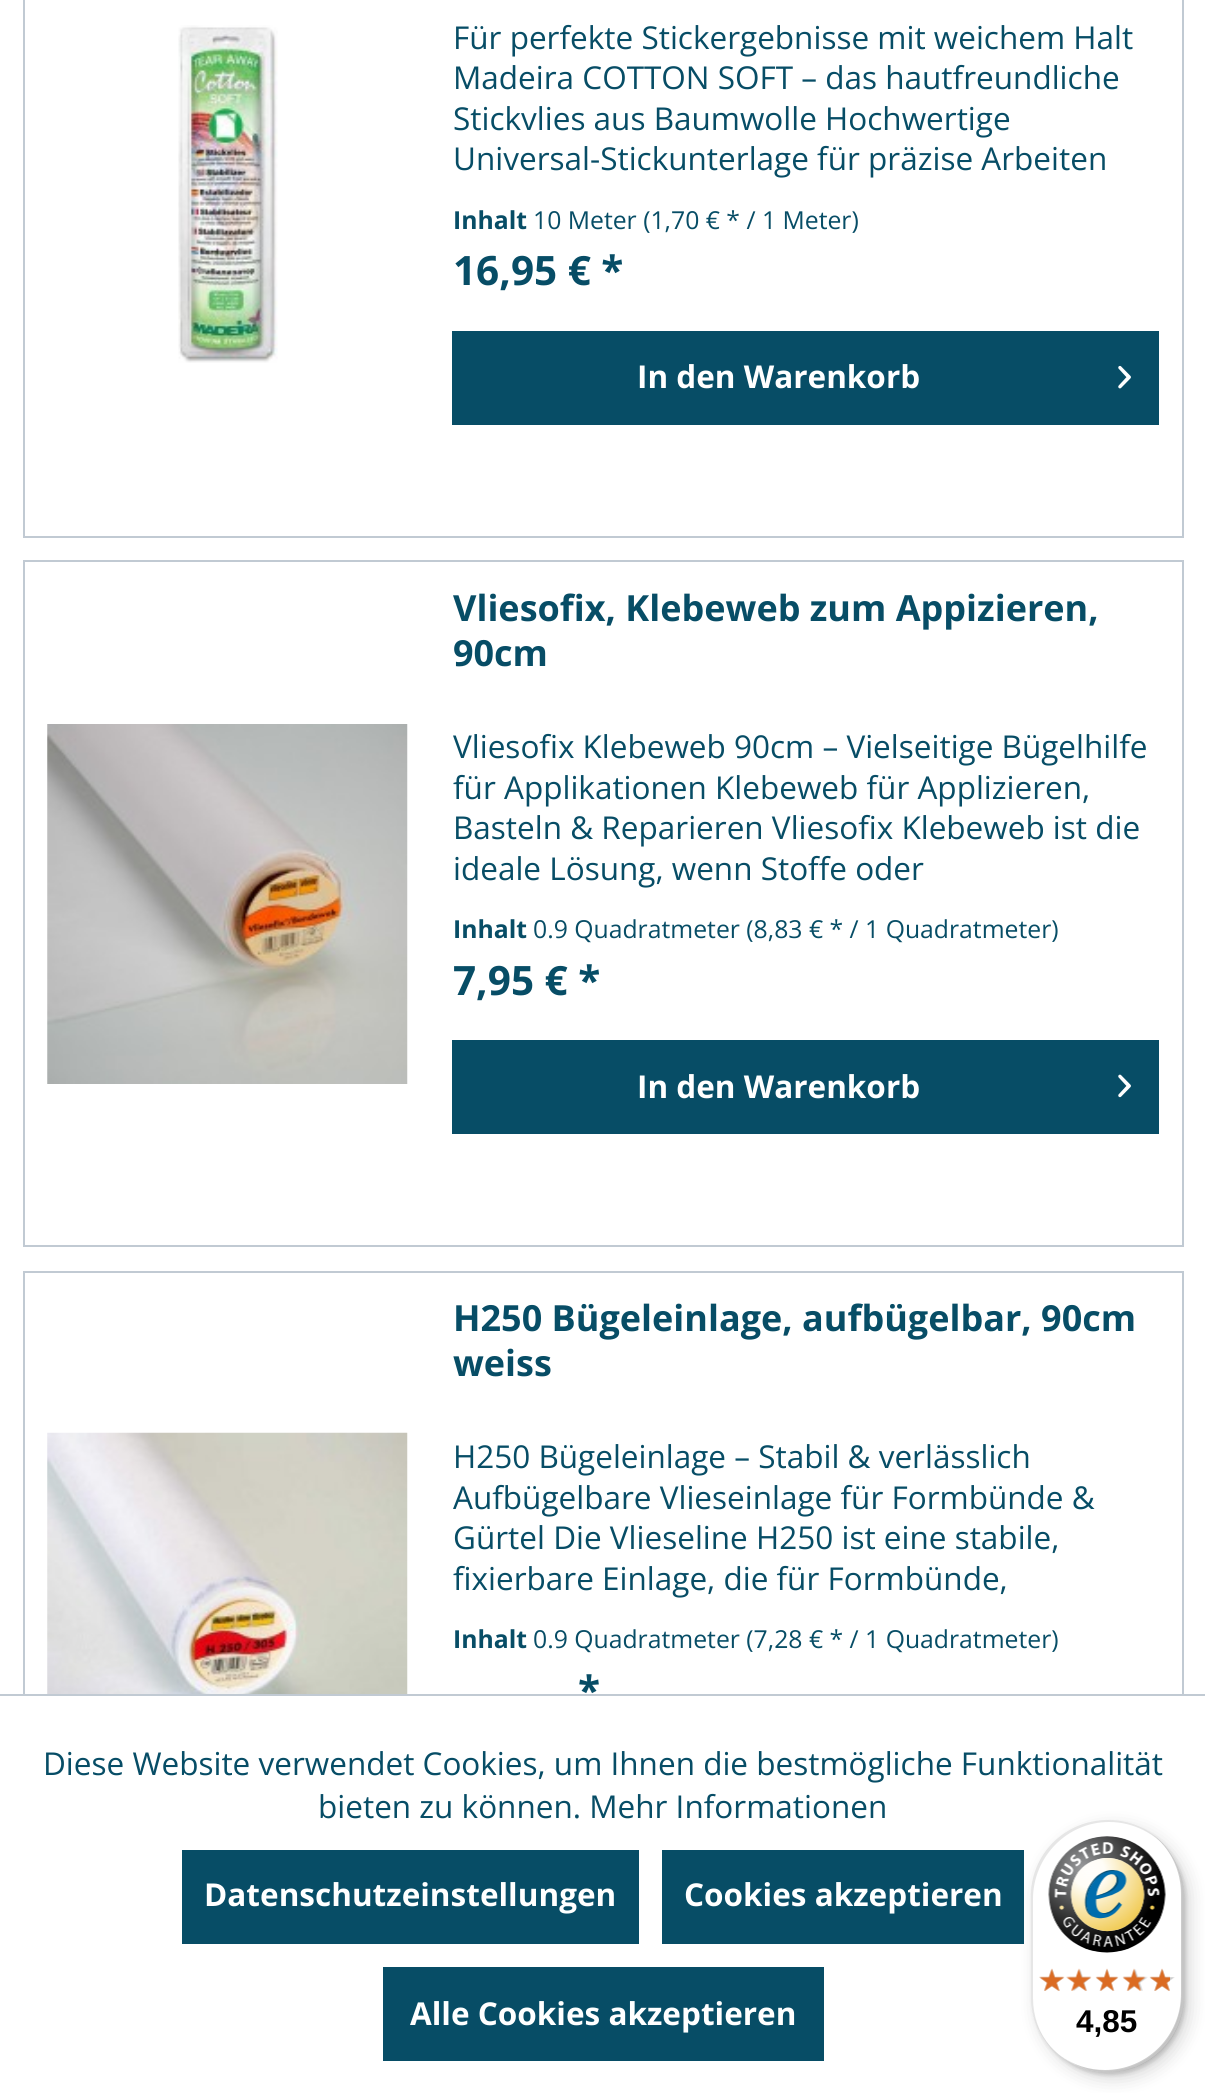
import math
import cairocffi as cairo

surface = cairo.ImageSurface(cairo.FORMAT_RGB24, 1205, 2093)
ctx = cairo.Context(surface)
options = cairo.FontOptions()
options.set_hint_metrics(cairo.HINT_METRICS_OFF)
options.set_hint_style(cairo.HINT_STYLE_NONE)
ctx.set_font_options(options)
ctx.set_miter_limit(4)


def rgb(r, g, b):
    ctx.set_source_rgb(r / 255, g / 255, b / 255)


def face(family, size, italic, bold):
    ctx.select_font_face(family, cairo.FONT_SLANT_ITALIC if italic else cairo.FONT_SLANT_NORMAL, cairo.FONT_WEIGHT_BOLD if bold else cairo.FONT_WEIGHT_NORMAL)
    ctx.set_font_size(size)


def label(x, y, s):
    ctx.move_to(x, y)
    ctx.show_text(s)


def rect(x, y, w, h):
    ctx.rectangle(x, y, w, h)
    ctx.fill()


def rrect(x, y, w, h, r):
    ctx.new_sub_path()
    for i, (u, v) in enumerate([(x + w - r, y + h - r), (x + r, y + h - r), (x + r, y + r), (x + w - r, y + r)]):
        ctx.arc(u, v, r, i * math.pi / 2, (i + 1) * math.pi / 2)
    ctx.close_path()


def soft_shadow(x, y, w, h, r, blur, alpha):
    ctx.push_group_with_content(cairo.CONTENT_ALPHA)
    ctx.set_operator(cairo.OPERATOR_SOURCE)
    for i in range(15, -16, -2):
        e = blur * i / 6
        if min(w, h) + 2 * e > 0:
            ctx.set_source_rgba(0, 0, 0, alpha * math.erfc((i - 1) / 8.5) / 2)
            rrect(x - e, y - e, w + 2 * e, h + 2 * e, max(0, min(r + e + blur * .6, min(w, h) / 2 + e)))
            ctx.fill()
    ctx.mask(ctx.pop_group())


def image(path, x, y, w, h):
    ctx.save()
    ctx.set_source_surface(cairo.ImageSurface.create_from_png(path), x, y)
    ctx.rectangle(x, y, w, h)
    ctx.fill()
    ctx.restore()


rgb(255, 255, 255)
ctx.paint()
ctx.rectangle(24, -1, 1159, 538)
rgb(193, 202, 211)
ctx.stroke()
image('image0.png', 178, 25, 100, 338)
face('Open Sans', 31.5, 0, 0)
rgb(7, 77, 102)
label(453, 49, 'Für perfekte Stickergebnisse mit weichem Halt')
label(453, 89, 'Madeira COTTON SOFT – das hautfreundliche')
label(453, 130, 'Stickvlies aus Baumwolle Hochwertige')
label(453, 170, 'Universal-Stickunterlage für präzise Arbeiten')
face('Open Sans', 24.75, 0, 1)
label(453, 229, 'Inhalt')
face('Open Sans', 24.75, 0, 0)
label(533, 229, '10 Meter (1,70 € * / 1 Meter)')
face('Open Sans', 40.5, 0, 1)
label(453, 285, '16,95 € *')
rect(452, 331, 707, 94)
face('Open Sans', 31.5, 0, 1)
rgb(255, 255, 255)
label(637, 388, 'In den Warenkorb')
image('image1.png', 1118, 365, 13, 24)
ctx.rectangle(24, 561, 1159, 685)
rgb(193, 202, 211)
ctx.stroke()
face('Open Sans', 36, 0, 1)
rgb(7, 77, 102)
label(453, 621, 'Vliesofix, Klebeweb zum Appizieren,')
label(453, 666, '90cm')
image('image2.png', 47, 724, 361, 360)
face('Open Sans', 31.5, 0, 0)
label(453, 758, 'Vliesofix Klebeweb 90cm – Vielseitige Bügelhilfe')
label(453, 799, 'für Applikationen Klebeweb für Applizieren,')
label(453, 839, 'Basteln & Reparieren Vliesofix Klebeweb ist die')
label(453, 880, 'ideale Lösung, wenn Stoffe oder')
face('Open Sans', 24.75, 0, 1)
label(453, 938, 'Inhalt')
face('Open Sans', 24.75, 0, 0)
label(533, 938, '0.9 Quadratmeter (8,83 € * / 1 Quadratmeter)')
face('Open Sans', 40.5, 0, 1)
label(453, 995, '7,95 € *')
rect(452, 1040, 707, 94)
face('Open Sans', 31.5, 0, 1)
rgb(255, 255, 255)
label(637, 1098, 'In den Warenkorb')
image('image3.png', 1118, 1074, 13, 24)
ctx.rectangle(24, 1272, 1159, 685)
rgb(193, 202, 211)
ctx.stroke()
face('Open Sans', 36, 0, 1)
rgb(7, 77, 102)
label(453, 1331, 'H250 Bügeleinlage, aufbügelbar, 90cm')
label(453, 1376, 'weiss')
image('image4.png', 47, 1432, 361, 262)
face('Open Sans', 31.5, 0, 0)
label(453, 1468, 'H250 Bügeleinlage – Stabil & verlässlich')
label(453, 1509, 'Aufbügelbare Vlieseinlage für Formbünde &')
label(453, 1549, 'Gürtel Die Vlieseline H250 ist eine stabile,')
label(453, 1590, 'fixierbare Einlage, die für Formbünde,')
face('Open Sans', 24.75, 0, 1)
label(453, 1648, 'Inhalt')
face('Open Sans', 24.75, 0, 0)
label(533, 1648, '0.9 Quadratmeter (7,28 € * / 1 Quadratmeter)')
face('Open Sans', 40.5, 0, 1)
label(578, 1705, '*')
rgb(255, 255, 255)
rect(23, 1696, 1161, 262)
rgb(193, 202, 211)
rect(0, 1694, 1205, 2)
face('Open Sans', 31.5, 0, 0)
rgb(7, 77, 102)
label(43, 1775, 'Diese Website verwendet Cookies, um Ihnen die bestmögliche Funktionalität')
label(318, 1818, 'bieten zu können. Mehr Informationen')
rect(182, 1850, 457, 94)
face('Open Sans', 31.5, 0, 1)
rgb(255, 255, 255)
label(204, 1906, 'Datenschutzeinstellungen')
rgb(7, 77, 102)
rect(662, 1850, 362, 94)
rgb(255, 255, 255)
label(684, 1906, 'Cookies akzeptieren')
rgb(7, 77, 102)
rect(383, 1967, 441, 94)
rgb(255, 255, 255)
label(410, 2025, 'Alle Cookies akzeptieren')
rgb(0, 0, 0)
soft_shadow(1037, 1827, 153, 252, 76.5, 9, 0.15)
soft_shadow(1033, 1823, 153, 252, 76.5, 2, 0.15)
rgb(255, 255, 255)
rrect(1031, 1820, 153, 252, 76.5)
ctx.fill()
ctx.set_source_rgba(0, 0, 0, 0.1)
ctx.new_path()
ctx.move_to(1109, 1822)
ctx.curve_to(1134, 1822, 1156, 1834, 1171, 1853)
ctx.curve_to(1157, 1833, 1134, 1820, 1108, 1820)
ctx.curve_to(1065, 1820, 1031, 1854, 1031, 1896)
ctx.line_to(1031, 1996)
ctx.curve_to(1031, 2015, 1038, 2033, 1050, 2046)
ctx.curve_to(1039, 2033, 1033, 2016, 1033, 1998)
ctx.line_to(1033, 1899)
ctx.curve_to(1033, 1857, 1067, 1822, 1109, 1822)
ctx.close_path()
ctx.fill()
ctx.set_source_rgba(0, 0, 0, 0.2)
ctx.new_path()
ctx.move_to(1061, 2056)
ctx.curve_to(1074, 2066, 1090, 2072, 1108, 2072)
ctx.curve_to(1150, 2072, 1184, 2038, 1184, 1996)
ctx.line_to(1184, 1896)
ctx.curve_to(1184, 1871, 1171, 1848, 1152, 1834)
ctx.curve_to(1170, 1848, 1181, 1870, 1181, 1894)
ctx.line_to(1181, 1994)
ctx.curve_to(1181, 2036, 1147, 2070, 1105, 2070)
ctx.curve_to(1089, 2070, 1073, 2065, 1061, 2056)
ctx.close_path()
ctx.fill()
ctx.set_source_rgba(0.196, 0.196, 0.196, 0.2)
ctx.new_path()
ctx.move_to(1072, 2063)
ctx.curve_to(1083, 2069, 1095, 2072, 1108, 2072)
ctx.curve_to(1150, 2072, 1184, 2038, 1184, 1996)
ctx.line_to(1184, 1896)
ctx.curve_to(1184, 1869, 1169, 1844, 1147, 1831)
ctx.curve_to(1168, 1844, 1182, 1868, 1182, 1895)
ctx.line_to(1182, 1994)
ctx.curve_to(1182, 2037, 1148, 2071, 1106, 2071)
ctx.curve_to(1094, 2071, 1082, 2068, 1072, 2063)
ctx.close_path()
ctx.fill()
ctx.set_source_rgba(1, 1, 1, 0.3)
ctx.new_path()
ctx.move_to(1067, 2060)
ctx.curve_to(1079, 2068, 1093, 2072, 1108, 2072)
ctx.curve_to(1150, 2072, 1184, 2038, 1184, 1996)
ctx.line_to(1184, 1896)
ctx.curve_to(1184, 1868, 1169, 1843, 1146, 1830)
ctx.curve_to(1167, 1844, 1182, 1868, 1182, 1896)
ctx.line_to(1182, 1995)
ctx.curve_to(1182, 2037, 1148, 2071, 1106, 2071)
ctx.curve_to(1092, 2071, 1079, 2067, 1067, 2060)
ctx.close_path()
ctx.fill()
image('image5.png', 1048, 1836, 118, 117)
image('image11.png', 1039, 1969, 25, 22)
image('image6.png', 1039, 1968, 26, 23)
image('image12.png', 1069, 1969, 22, 22)
image('image7.png', 1066, 1968, 26, 23)
image('image13.png', 1096, 1969, 22, 22)
image('image8.png', 1095, 1968, 24, 23)
image('image14.png', 1123, 1969, 25, 22)
image('image9.png', 1122, 1968, 24, 23)
image('image15.png', 1150, 1969, 25, 22)
image('image10.png', 1149, 1968, 21, 23)
face('Liberation Sans', 31.5, 0, 1)
rgb(0, 0, 0)
label(1076, 2032, '4,85')
surface.write_to_png('render.png')
